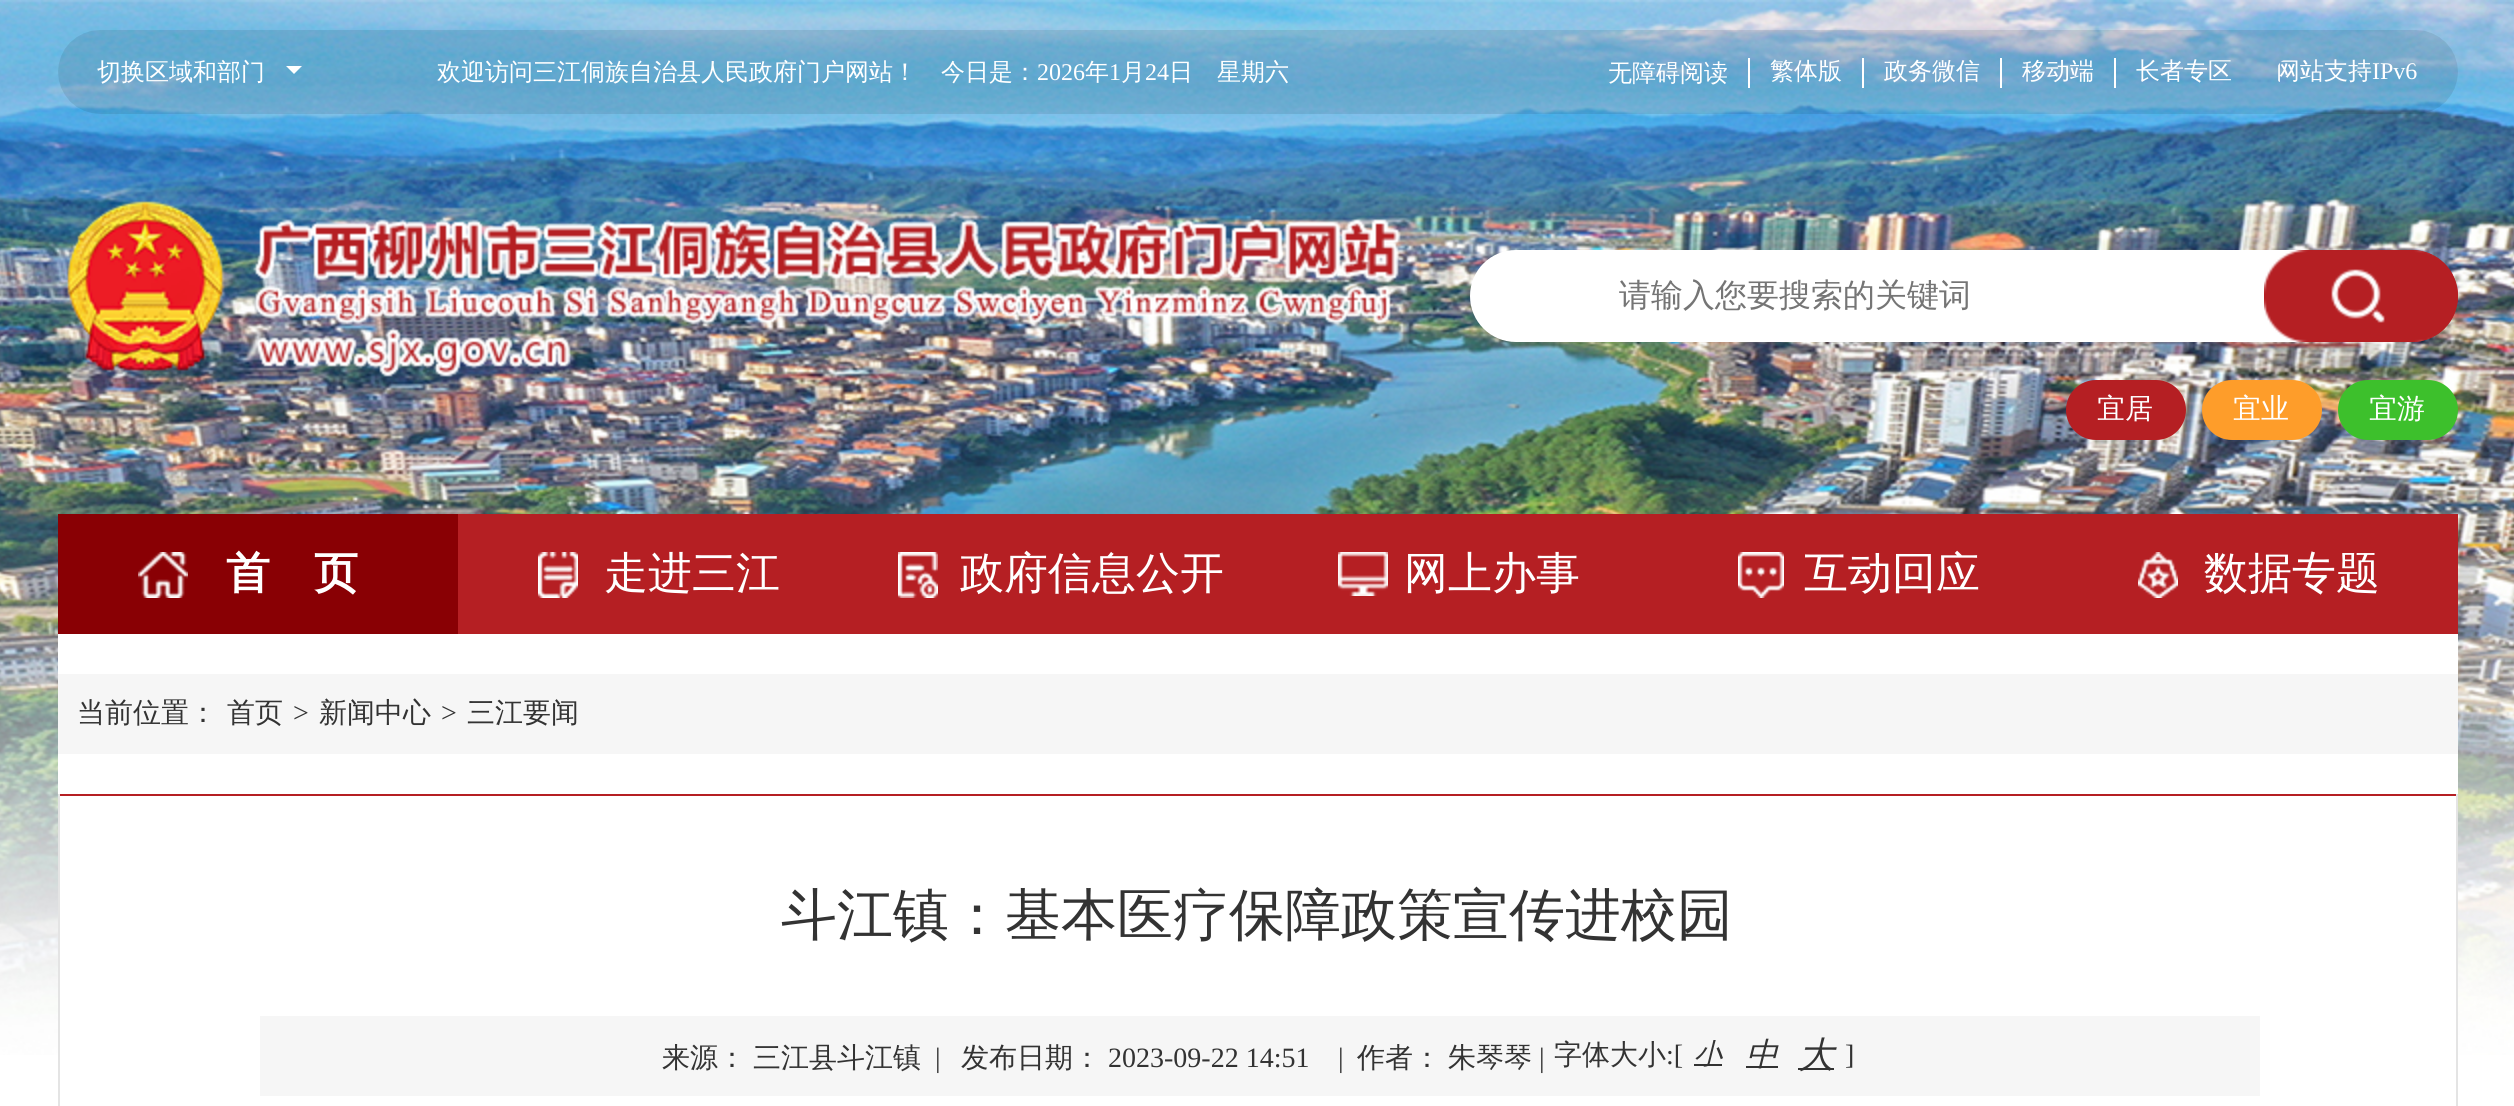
import math
import cairocffi as cairo

surface = cairo.ImageSurface(cairo.FORMAT_RGB24, 2514, 1106)
ctx = cairo.Context(surface)
options = cairo.FontOptions()
options.set_hint_metrics(cairo.HINT_METRICS_OFF)
options.set_hint_style(cairo.HINT_STYLE_NONE)
ctx.set_font_options(options)
ctx.set_miter_limit(4)


def rgb(r, g, b):
    ctx.set_source_rgb(r / 255, g / 255, b / 255)


def face(family, size, italic, bold):
    ctx.select_font_face(family, cairo.FONT_SLANT_ITALIC if italic else cairo.FONT_SLANT_NORMAL, cairo.FONT_WEIGHT_BOLD if bold else cairo.FONT_WEIGHT_NORMAL)
    ctx.set_font_size(size)


def label(x, y, s):
    ctx.move_to(x, y)
    ctx.show_text(s)


def rect(x, y, w, h):
    ctx.rectangle(x, y, w, h)
    ctx.fill()


def rrect(x, y, w, h, r):
    ctx.new_sub_path()
    for i, (u, v) in enumerate([(x + w - r, y + h - r), (x + r, y + h - r), (x + r, y + r), (x + w - r, y + r)]):
        ctx.arc(u, v, r, i * math.pi / 2, (i + 1) * math.pi / 2)
    ctx.close_path()


def image(path, x, y, w, h):
    ctx.save()
    ctx.set_source_surface(cairo.ImageSurface.create_from_png(path), x, y)
    ctx.rectangle(x, y, w, h)
    ctx.fill()
    ctx.restore()


rgb(255, 255, 255)
ctx.paint()
image('image0.png', 0, 0, 2514, 1055)
image('image1.png', 58, 30, 2400, 84)
face('WenQuanYi Zen Hei Medium', 24, 0, 0)
rgb(255, 255, 255)
label(97, 80, '切换区域和部门')
ctx.new_path()
ctx.move_to(286, 66)
ctx.line_to(302, 66)
ctx.line_to(294, 74)
ctx.close_path()
ctx.fill()
label(437, 80, '欢迎访问三江侗族自治县人民政府门户网站！　今日是：')
face('Liberation Serif', 24, 0, 0)
label(1037, 80, '2026')
face('WenQuanYi Zen Hei Medium', 24, 0, 0)
label(1085, 80, '年')
face('Liberation Serif', 24, 0, 0)
label(1109, 80, '1')
face('WenQuanYi Zen Hei Medium', 24, 0, 0)
label(1121, 80, '月')
face('Liberation Serif', 24, 0, 0)
label(1145, 80, '24')
face('WenQuanYi Zen Hei Medium', 24, 0, 0)
label(1169, 80, '日　星期六')
label(1608, 81, '无障碍阅读')
rect(1748, 58, 2, 30)
label(1770, 79, '繁体版')
rect(1862, 58, 2, 30)
label(1884, 79, '政务微信')
rect(2000, 58, 2, 30)
label(2022, 79, '移动端')
rect(2114, 58, 2, 30)
label(2136, 79, '长者专区')
ctx.save()
rrect(2276, 58, 142, 30, 15)
ctx.clip()
label(2276, 79, '网站支持')
face('Liberation Serif', 24, 0, 0)
label(2372, 79, 'IPv6')
ctx.restore()
image('image2.png', 67, 201, 158, 170)
image('image3.png', 253, 219, 1148, 158)
ctx.new_path()
ctx.move_to(1516, 250)
ctx.line_to(2264, 250)
ctx.line_to(2264, 342)
ctx.line_to(1516, 342)
ctx.curve_to(1490.5, 342, 1470, 321.5, 1470, 296)
ctx.curve_to(1470, 270.5, 1490.5, 250, 1516, 250)
ctx.close_path()
ctx.fill()
face('WenQuanYi Zen Hei Medium', 32, 0, 0)
rgb(117, 117, 117)
label(1619, 306, '请输入您要搜索的关键词')
rgb(181, 31, 35)
ctx.new_path()
ctx.move_to(2264, 250)
ctx.line_to(2412, 250)
ctx.curve_to(2437.5, 250, 2458, 270.5, 2458, 296)
ctx.curve_to(2458, 321.5, 2437.5, 342, 2412, 342)
ctx.line_to(2264, 342)
ctx.close_path()
ctx.fill()
image('image4.png', 2264, 250, 194, 92)
rrect(2066, 380, 120, 60, 30)
ctx.fill()
face('WenQuanYi Zen Hei Medium', 28, 0, 0)
rgb(255, 255, 255)
label(2097, 418, '宜居')
rgb(254, 157, 42)
rrect(2202, 380, 120, 60, 30)
ctx.fill()
rgb(255, 255, 255)
label(2233, 418, '宜业')
rgb(61, 192, 44)
rrect(2338, 380, 120, 60, 30)
ctx.fill()
rgb(255, 255, 255)
label(2369, 418, '宜游')
rgb(181, 31, 35)
rect(458, 514, 2000, 120)
rgb(137, 0, 4)
rect(58, 514, 400, 120)
image('image5.png', 138, 552, 50, 46)
face('WenQuanYi Zen Hei', 44, 0, 1)
rgb(255, 255, 255)
label(226, 588, '首　页')
image('image6.png', 538, 552, 40, 46)
face('WenQuanYi Zen Hei Medium', 44, 0, 0)
label(604, 588, '走进三江')
image('image7.png', 898, 552, 40, 46)
label(960, 588, '政府信息公开')
image('image8.png', 1338, 552, 50, 44)
label(1404, 588, '网上办事')
image('image9.png', 1738, 552, 46, 46)
label(1804, 588, '互动回应')
image('image10.png', 2138, 552, 40, 46)
label(2204, 588, '数据专题')
rect(58, 634, 2400, 421)
rgb(246, 246, 246)
rect(58, 674, 2400, 80)
face('WenQuanYi Zen Hei Medium', 28, 0, 0)
rgb(51, 51, 51)
label(77, 722, '当前位置：')
label(227, 722, '首页')
face('Liberation Serif', 28, 0, 0)
label(293, 722, '>')
face('WenQuanYi Zen Hei Medium', 28, 0, 0)
label(319, 722, '新闻中心')
face('Liberation Serif', 28, 0, 0)
label(441, 722, '>')
face('WenQuanYi Zen Hei Medium', 28, 0, 0)
label(467, 722, '三江要闻')
rgb(181, 31, 35)
rect(58, 794, 2400, 2)
rgb(228, 228, 228)
rect(2456, 794, 2, 312)
rect(58, 794, 2, 312)
face('WenQuanYi Zen Hei Medium', 56, 0, 0)
rgb(51, 51, 51)
label(781, 934, '斗江镇：基本医疗保障政策宣传进校园')
rgb(246, 246, 246)
rect(260, 1016, 2000, 80)
face('WenQuanYi Zen Hei Medium', 28, 0, 0)
rgb(51, 51, 51)
label(662, 1067, '来源：')
label(753, 1067, '三江县斗江镇')
face('Liberation Serif', 28, 0, 0)
label(935, 1067, '|')
face('WenQuanYi Zen Hei Medium', 28, 0, 0)
label(961, 1067, '发布日期：')
face('Liberation Serif', 28, 0, 0)
label(1108, 1067, '2023-09-22 14:51')
label(1338, 1067, '|')
face('WenQuanYi Zen Hei Medium', 28, 0, 0)
label(1357, 1067, '作者：')
label(1448, 1067, '朱琴琴')
face('Liberation Serif', 28, 0, 0)
label(1539, 1067, '|')
face('WenQuanYi Zen Hei Medium', 28, 0, 0)
label(1554, 1064, '字体大小')
face('Liberation Serif', 28, 0, 0)
label(1666, 1064, ':[')
rect(1694, 1064, 28, 2)
face('WenQuanYi Zen Hei Medium', 28, 1, 0)
label(1694, 1063, '小')
rect(1746, 1066, 32, 2)
face('WenQuanYi Zen Hei Medium', 32, 1, 0)
label(1746, 1065, '中')
rect(1798, 1068, 36, 2)
face('WenQuanYi Zen Hei Medium', 36, 1, 0)
label(1798, 1067, '大')
face('Liberation Serif', 28, 0, 0)
label(1845, 1064, ']')
surface.write_to_png('render.png')
